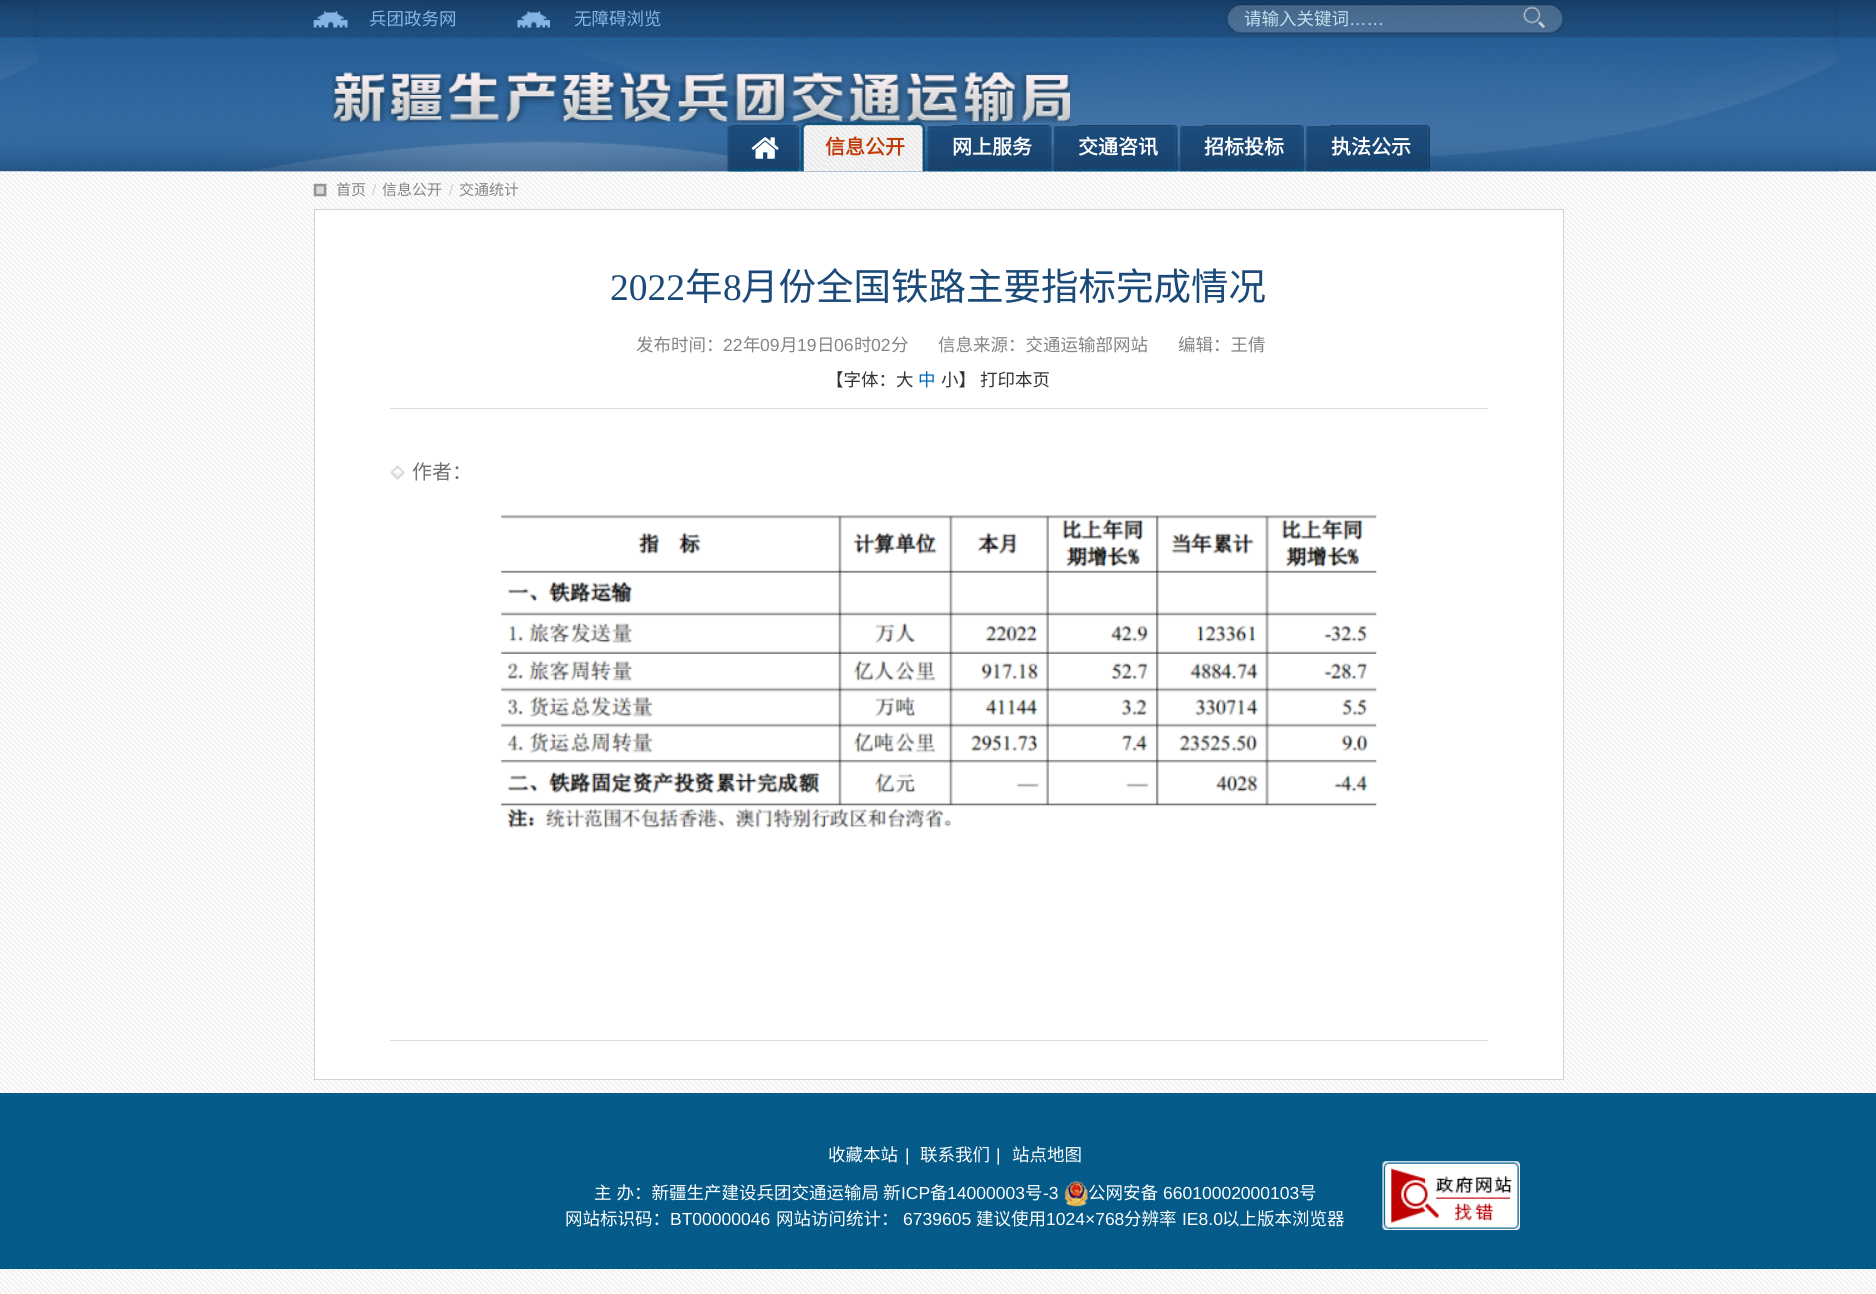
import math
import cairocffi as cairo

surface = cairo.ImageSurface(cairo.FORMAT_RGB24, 1876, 1294)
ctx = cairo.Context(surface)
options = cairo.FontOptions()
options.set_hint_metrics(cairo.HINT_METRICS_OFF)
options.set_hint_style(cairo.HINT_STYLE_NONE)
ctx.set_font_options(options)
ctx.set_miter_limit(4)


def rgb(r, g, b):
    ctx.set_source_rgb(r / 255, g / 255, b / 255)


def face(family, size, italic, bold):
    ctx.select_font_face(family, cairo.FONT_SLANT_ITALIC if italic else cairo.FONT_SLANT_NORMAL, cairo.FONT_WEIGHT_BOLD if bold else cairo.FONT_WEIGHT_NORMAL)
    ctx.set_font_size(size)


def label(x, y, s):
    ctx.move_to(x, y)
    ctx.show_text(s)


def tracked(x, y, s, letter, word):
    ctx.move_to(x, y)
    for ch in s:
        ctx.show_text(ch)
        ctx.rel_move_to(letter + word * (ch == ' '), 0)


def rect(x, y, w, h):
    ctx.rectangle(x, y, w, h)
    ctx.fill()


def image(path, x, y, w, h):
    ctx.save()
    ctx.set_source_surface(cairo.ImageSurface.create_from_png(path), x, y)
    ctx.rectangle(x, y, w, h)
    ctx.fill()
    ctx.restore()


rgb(255, 255, 255)
ctx.paint()
image('image0.png', 0, 171, 1876, 1123)
image('image1.png', 0, 0, 1876, 172)
image('image2.png', 38, 0, 1801, 172)
image('image3.png', 313, 11, 35, 17)
face('Noto Sans CJK SC', 17.5, 0, 0)
rgb(133, 181, 230)
label(369, 25, '兵团政务网')
image('image4.png', 517, 11, 33, 17)
label(574, 25, '无障碍浏览')
image('image5.png', 1226, 3, 338, 31)
rgb(195, 224, 240)
label(1244, 25, '请输入关键词')
face('Liberation Sans', 17.5, 0, 0)
label(1349, 25, '……')
image('image6.png', 332, 72, 738, 51)
image('image7.png', 727, 126, 28, 46)
image('image8.png', 731, 125, 68, 47)
image('image9.png', 751, 137, 28, 22)
image('image10.png', 801, 122, 26, 50)
image('image11.png', 825, 122, 100, 50)
face('Noto Sans CJK SC', 20, 0, 1)
rgb(193, 59, 7)
label(825, 154, '信息公开')
image('image12.png', 927, 126, 28, 46)
image('image13.png', 951, 125, 101, 47)
rgb(255, 255, 255)
label(952, 154, '网上服务')
image('image14.png', 1053, 126, 29, 46)
image('image15.png', 1077, 125, 101, 47)
label(1078, 154, '交通咨讯')
image('image16.png', 1180, 126, 28, 46)
image('image17.png', 1203, 125, 101, 47)
label(1204, 154, '招标投标')
image('image18.png', 1306, 126, 28, 46)
image('image19.png', 1330, 125, 100, 47)
label(1331, 154, '执法公示')
image('image20.png', 313, 183, 14, 14)
face('Noto Sans CJK SC', 15, 0, 0)
rgb(132, 132, 132)
label(336, 195, '首页')
face('Liberation Sans', 15, 0, 0)
rgb(204, 204, 204)
label(372, 195, '/')
face('Noto Sans CJK SC', 15, 0, 0)
rgb(132, 132, 132)
label(382, 195, '信息公开')
face('Liberation Sans', 15, 0, 0)
rgb(204, 204, 204)
label(449, 195, '/')
face('Noto Sans CJK SC', 15, 0, 0)
rgb(132, 132, 132)
label(459, 195, '交通统计')
rgb(255, 255, 255)
ctx.rectangle(314.5, 209.5, 1249, 870)
ctx.fill_preserve()
rgb(210, 210, 210)
ctx.set_line_width(1)
ctx.stroke()
rgb(220, 220, 220)
rect(390, 408, 1098, 1)
face('Liberation Serif', 37.5, 0, 0)
rgb(27, 74, 121)
label(610, 300, '2022')
face('Noto Sans CJK SC', 37.5, 0, 0)
label(685, 300, '年')
face('Liberation Serif', 37.5, 0, 0)
label(723, 300, '8')
face('Noto Sans CJK SC', 37.5, 0, 0)
label(741, 300, '月份全国铁路主要指标完成情况')
face('Noto Sans CJK SC', 17.5, 0, 0)
rgb(132, 132, 132)
label(636, 351, '发布时间：')
face('Liberation Sans', 17.5, 0, 0)
label(723, 351, '22')
face('Noto Sans CJK SC', 17.5, 0, 0)
label(743, 351, '年')
face('Liberation Sans', 17.5, 0, 0)
label(760, 351, '09')
face('Noto Sans CJK SC', 17.5, 0, 0)
label(780, 351, '月')
face('Liberation Sans', 17.5, 0, 0)
label(797, 351, '19')
face('Noto Sans CJK SC', 17.5, 0, 0)
label(817, 351, '日')
face('Liberation Sans', 17.5, 0, 0)
label(834, 351, '06')
face('Noto Sans CJK SC', 17.5, 0, 0)
label(854, 351, '时')
face('Liberation Sans', 17.5, 0, 0)
label(871, 351, '02')
face('Noto Sans CJK SC', 17.5, 0, 0)
label(891, 351, '分')
label(938, 351, '信息来源：交通运输部网站')
label(1178, 351, '编辑：王倩')
rgb(51, 51, 51)
label(826, 386, '【字体：大')
rgb(0, 104, 183)
label(918, 386, '中')
rgb(51, 51, 51)
label(941, 386, '小】')
label(980, 386, '打印本页')
image('image21.png', 390, 465, 15, 15)
face('Noto Sans CJK SC', 20, 0, 0)
rgb(113, 113, 113)
label(412, 479, '作者：')
rgb(220, 220, 220)
rect(390, 1040, 1098, 1)
image('image22.png', 501, 515, 876, 313)
rgb(4, 90, 137)
rect(0, 1093, 1876, 176)
face('Noto Sans CJK SC', 17.5, 0, 0)
rgb(255, 255, 255)
label(828, 1161, '收藏本站')
face('Liberation Sans', 17.5, 0, 0)
label(905, 1161, '|')
face('Noto Sans CJK SC', 17.5, 0, 0)
label(920, 1161, '联系我们')
face('Liberation Sans', 17.5, 0, 0)
label(996, 1161, '|')
face('Noto Sans CJK SC', 17.5, 0, 0)
label(1012, 1161, '站点地图')
image('image23.png', 1382, 1161, 138, 69)
tracked(594, 1199, '主 办：新疆生产建设兵团交通运输局', 0, 1)
label(883, 1199, '新')
face('Liberation Sans', 17.5, 0, 0)
label(901, 1199, 'ICP')
face('Noto Sans CJK SC', 17.5, 0, 0)
label(930, 1199, '备')
face('Liberation Sans', 17.5, 0, 0)
label(947, 1199, '14000003')
face('Noto Sans CJK SC', 17.5, 0, 0)
label(1025, 1199, '号')
face('Liberation Sans', 17.5, 0, 0)
label(1043, 1199, '-3')
image('image24.png', 1064, 1181, 24, 26)
face('Noto Sans CJK SC', 17.5, 0, 0)
label(1088, 1199, '公网安备')
face('Liberation Sans', 17.5, 0, 0)
label(1163, 1199, '66010002000103')
face('Noto Sans CJK SC', 17.5, 0, 0)
label(1299, 1199, '号')
label(565, 1225, '网站标识码：')
face('Liberation Sans', 17.5, 0, 0)
label(670, 1225, 'BT00000046')
face('Noto Sans CJK SC', 17.5, 0, 0)
label(776, 1225, '网站访问统计：')
face('Liberation Sans', 17.5, 0, 0)
label(903, 1225, '6739605')
face('Noto Sans CJK SC', 17.5, 0, 0)
label(976, 1225, '建议使用')
face('Liberation Sans', 17.5, 0, 0)
label(1046, 1225, '1024×768')
face('Noto Sans CJK SC', 17.5, 0, 0)
label(1124, 1225, '分辨率')
face('Liberation Sans', 17.5, 0, 0)
label(1182, 1225, 'IE8.0')
face('Noto Sans CJK SC', 17.5, 0, 0)
label(1222, 1225, '以上版本浏览器')
surface.write_to_png('render.png')
